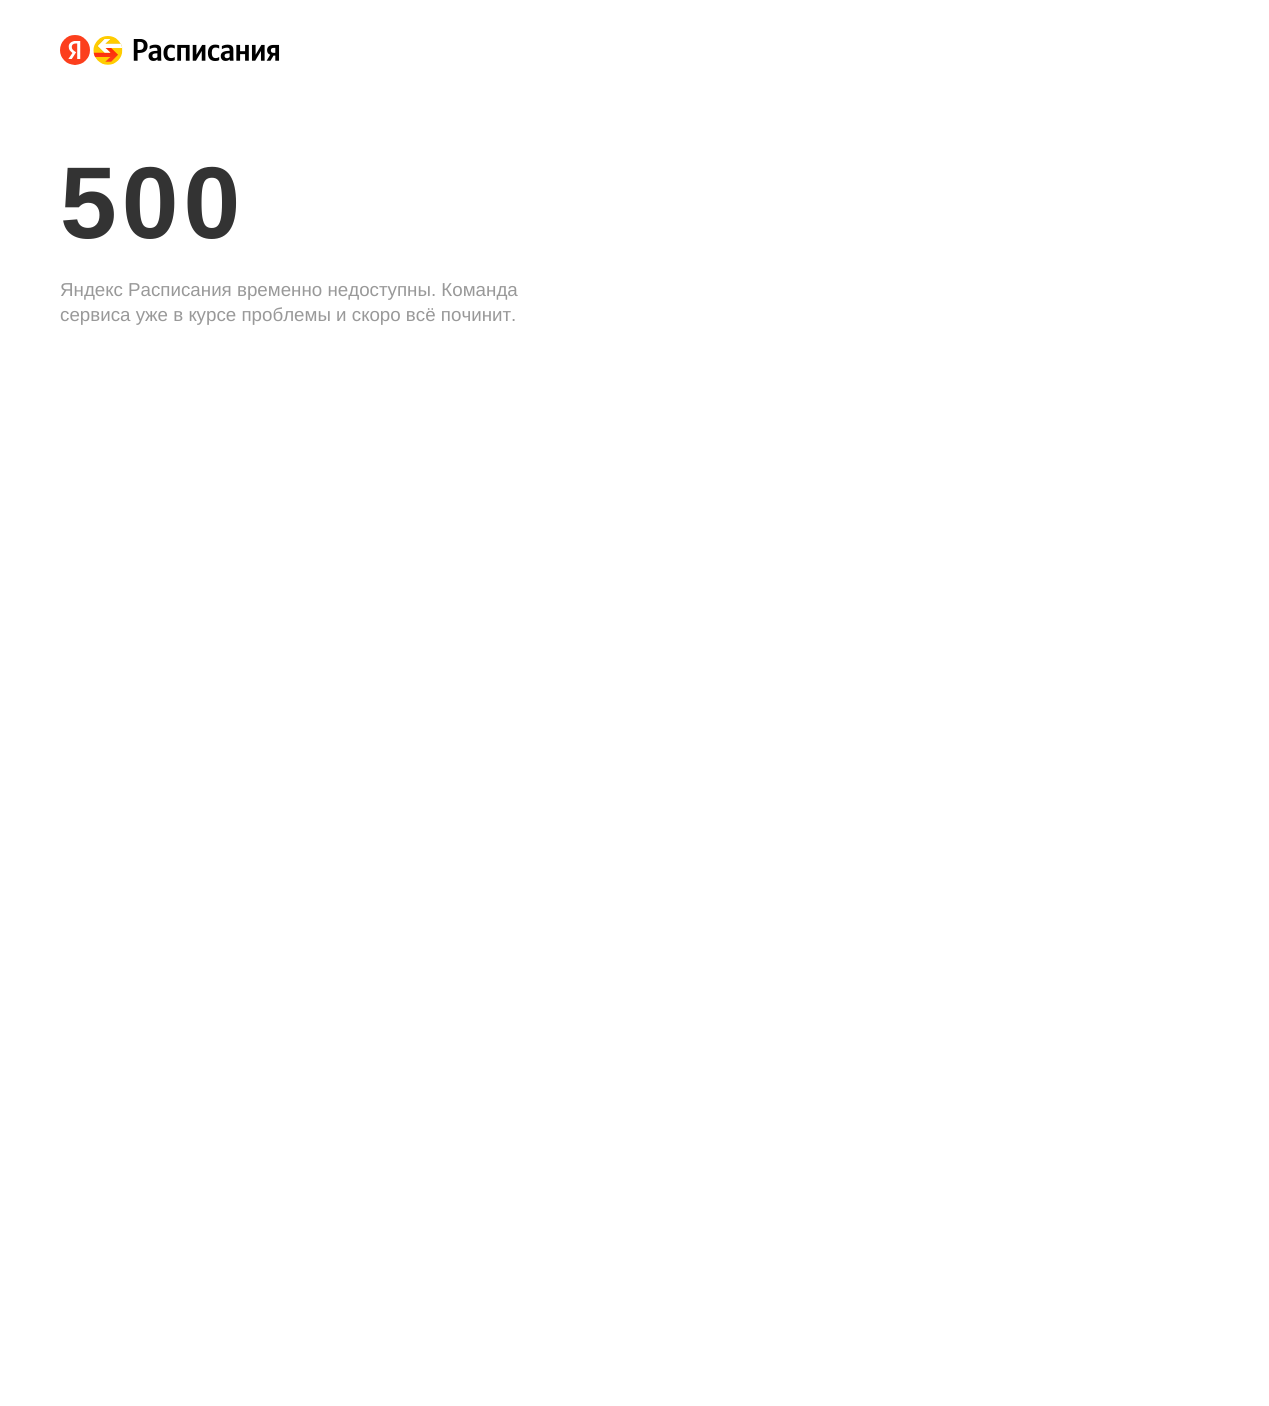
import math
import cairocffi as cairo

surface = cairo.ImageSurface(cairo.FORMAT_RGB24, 1269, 1406)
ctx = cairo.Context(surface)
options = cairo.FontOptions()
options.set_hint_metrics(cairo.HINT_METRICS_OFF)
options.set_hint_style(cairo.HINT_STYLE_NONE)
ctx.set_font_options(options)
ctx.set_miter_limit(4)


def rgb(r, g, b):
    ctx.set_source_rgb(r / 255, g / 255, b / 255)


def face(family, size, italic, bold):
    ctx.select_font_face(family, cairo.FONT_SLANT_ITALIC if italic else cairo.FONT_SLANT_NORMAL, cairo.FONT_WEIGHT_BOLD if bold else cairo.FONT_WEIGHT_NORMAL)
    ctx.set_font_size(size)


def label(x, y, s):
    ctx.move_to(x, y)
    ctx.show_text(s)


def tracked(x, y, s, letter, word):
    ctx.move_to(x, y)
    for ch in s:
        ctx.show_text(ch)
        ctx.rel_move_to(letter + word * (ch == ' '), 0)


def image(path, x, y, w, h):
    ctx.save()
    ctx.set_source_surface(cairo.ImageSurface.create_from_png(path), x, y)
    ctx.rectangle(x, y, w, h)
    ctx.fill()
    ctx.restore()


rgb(255, 255, 255)
ctx.paint()
image('image0.png', 60, 35, 30, 30)
image('image1.png', 93, 36, 30, 29)
image('image2.png', 133, 39, 147, 22)
face('Liberation Sans', 102, 0, 1)
rgb(51, 51, 51)
tracked(60, 238, '500', 5, 0)
face('Liberation Sans', 18.75, 0, 0)
rgb(153, 153, 153)
label(60, 296, 'Яндекс Расписания временно недоступны. Команда')
label(60, 321, 'сервиса уже в курсе проблемы и скоро всё починит.')
surface.write_to_png('render.png')
